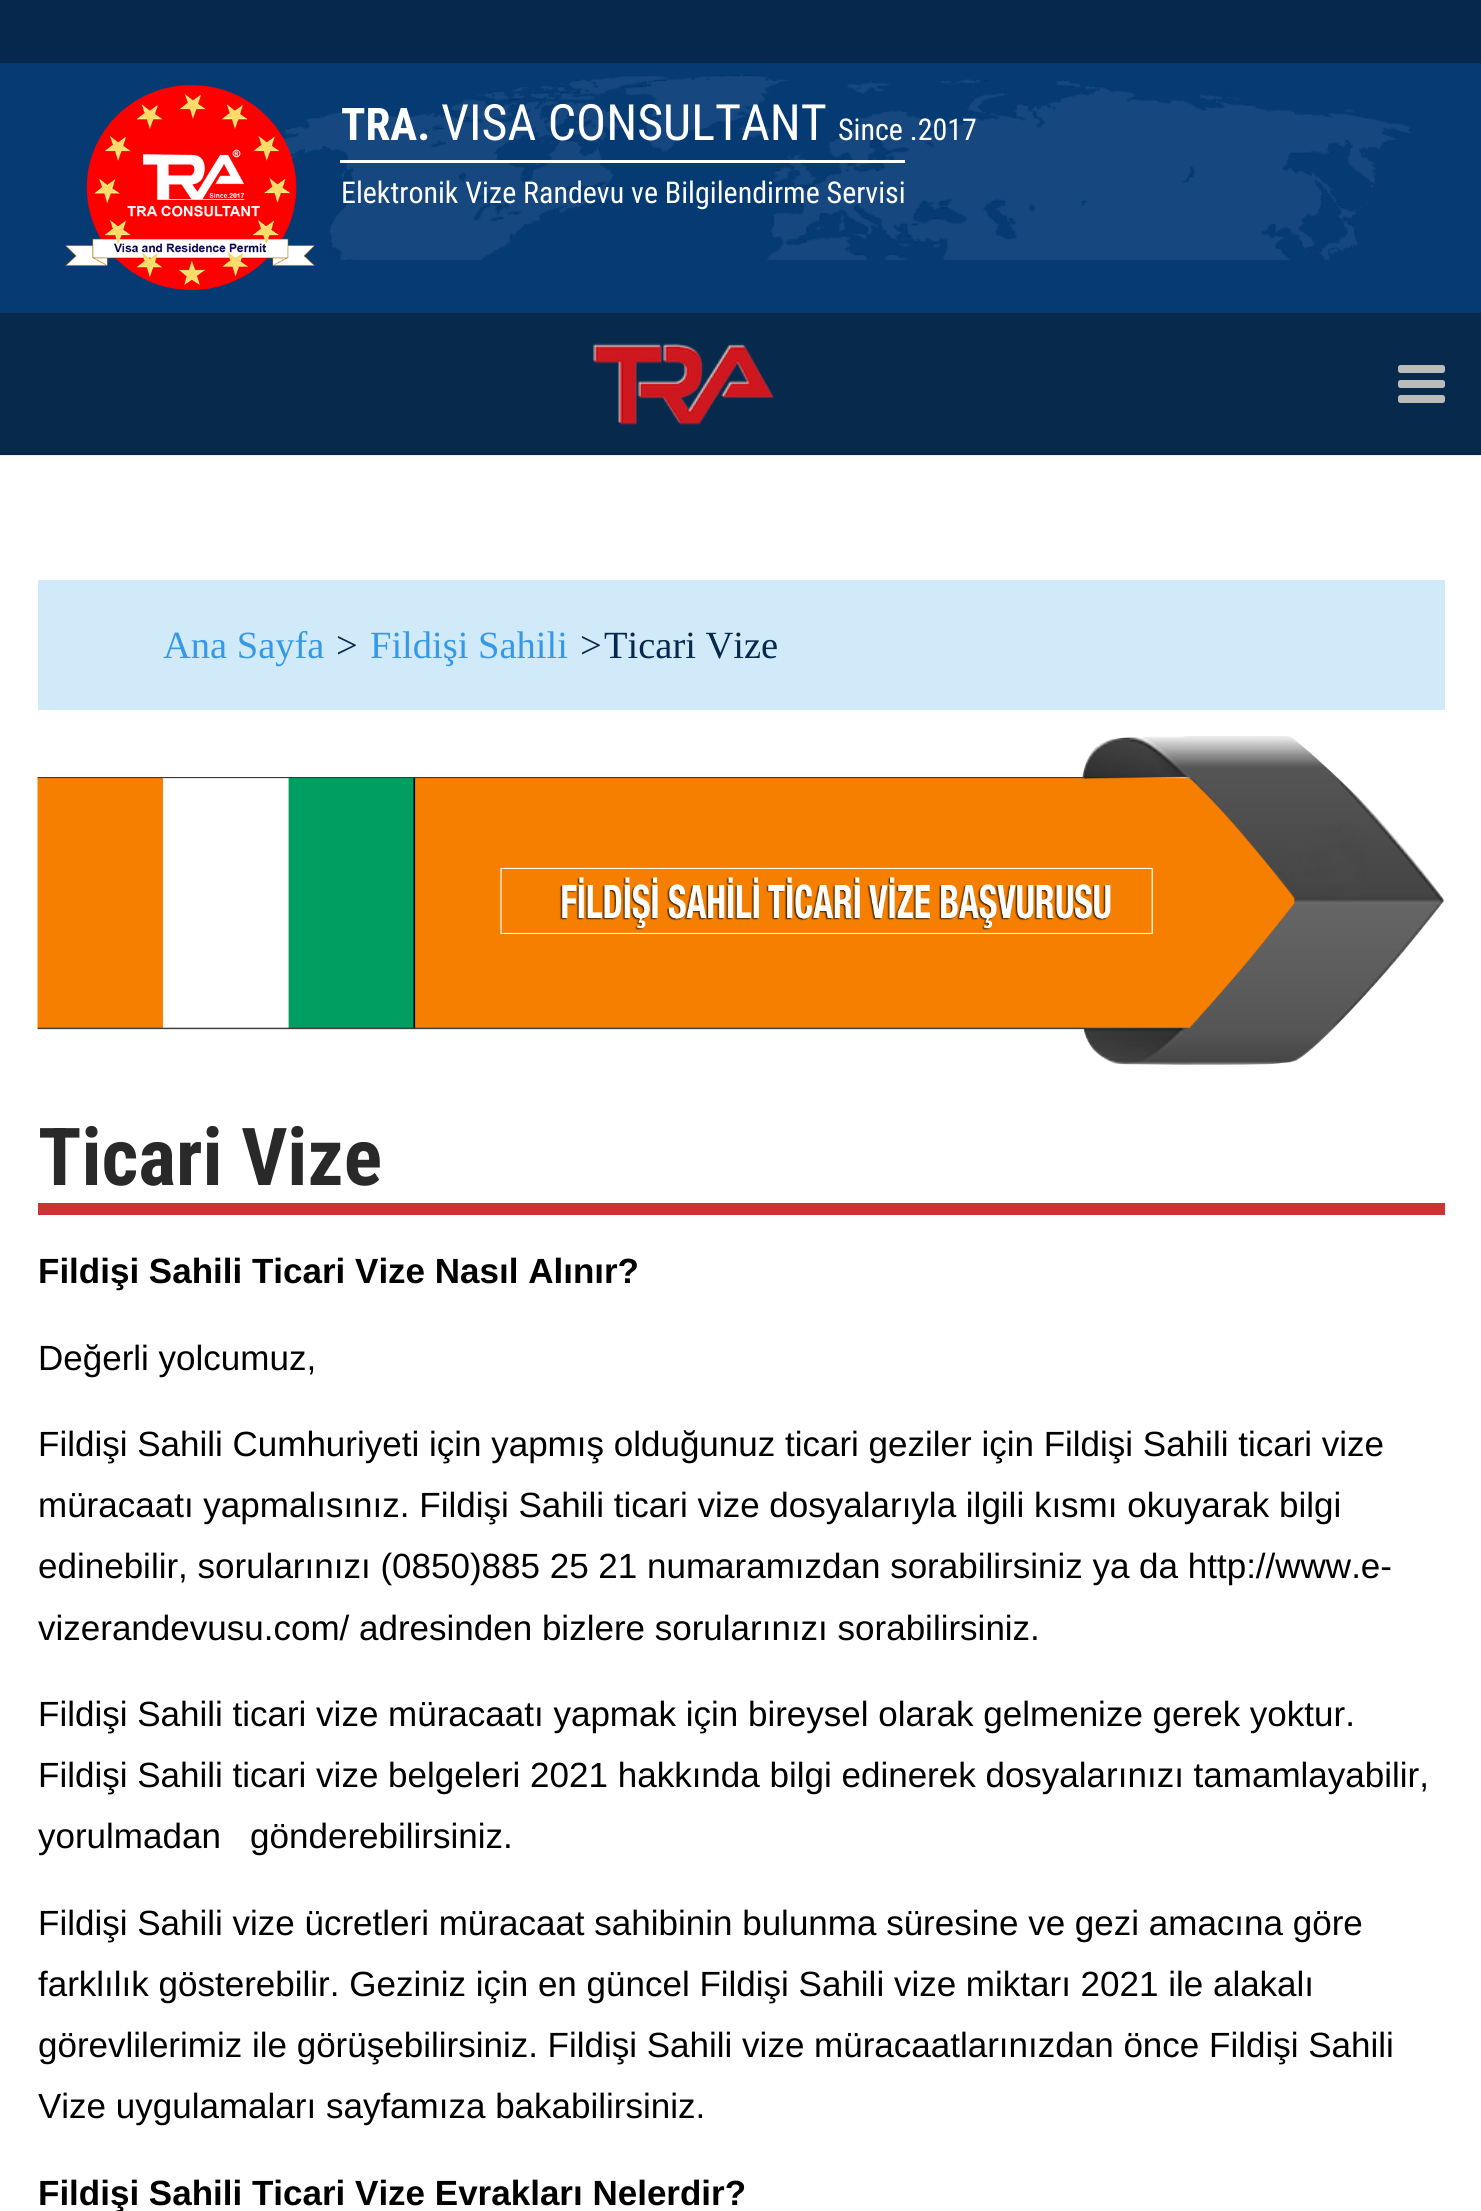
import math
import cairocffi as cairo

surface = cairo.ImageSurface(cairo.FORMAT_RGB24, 1481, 2211)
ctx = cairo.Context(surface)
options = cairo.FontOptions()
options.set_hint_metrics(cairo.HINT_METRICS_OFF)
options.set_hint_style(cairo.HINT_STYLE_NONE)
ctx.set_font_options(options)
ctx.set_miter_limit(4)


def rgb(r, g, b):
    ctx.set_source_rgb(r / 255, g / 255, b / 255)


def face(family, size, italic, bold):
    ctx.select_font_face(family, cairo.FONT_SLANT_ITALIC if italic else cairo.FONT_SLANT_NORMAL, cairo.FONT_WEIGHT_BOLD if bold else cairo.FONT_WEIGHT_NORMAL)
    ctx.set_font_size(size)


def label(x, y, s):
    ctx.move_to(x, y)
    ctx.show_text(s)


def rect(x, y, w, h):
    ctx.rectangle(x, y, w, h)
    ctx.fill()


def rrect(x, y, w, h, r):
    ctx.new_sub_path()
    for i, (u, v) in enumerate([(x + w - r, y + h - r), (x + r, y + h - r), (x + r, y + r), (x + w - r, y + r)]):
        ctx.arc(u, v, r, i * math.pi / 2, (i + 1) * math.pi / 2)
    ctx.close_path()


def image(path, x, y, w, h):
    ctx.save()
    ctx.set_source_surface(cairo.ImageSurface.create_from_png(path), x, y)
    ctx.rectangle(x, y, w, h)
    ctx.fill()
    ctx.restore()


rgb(255, 255, 255)
ctx.paint()
rgb(5, 58, 115)
rect(0, 63, 1481, 250)
rgb(6, 40, 76)
rect(0, 0, 1481, 63)
image('image0.png', 281, 74, 1130, 186)
image('image1.png', 65, 85, 250, 205)
face('Roboto Condensed', 45, 0, 1)
rgb(255, 255, 255)
label(341, 140, 'TRA.')
face('Roboto Condensed', 50, 0, 0)
label(441, 140, 'VISA CONSULTANT')
face('Roboto Condensed', 30, 0, 0)
label(838, 140, 'Since .2017')
rect(340, 160, 565, 3)
label(341, 203, 'Elektronik Vize Randevu ve Bilgilendirme Servisi')
rgb(6, 41, 76)
rect(0, 313, 1481, 142)
ctx.set_source_rgba(0, 0, 0, 0.07)
rect(0, 453, 1481, 3)
image('image2.png', 593, 343, 181, 82)
rgb(187, 187, 187)
rrect(1398, 365, 47, 8, 2.5)
ctx.fill()
rrect(1398, 380, 47, 8, 2.5)
ctx.fill()
rrect(1398, 395, 47, 8, 2.5)
ctx.fill()
rgb(208, 234, 249)
rect(38, 580, 1407, 130)
face('Liberation Serif', 38.5, 0, 0)
rgb(55, 153, 229)
label(163, 658, 'Ana Sayfa')
rgb(6, 40, 76)
label(336, 658, '>')
rgb(55, 153, 229)
label(370, 658, 'Fildişi Sahili')
rgb(6, 40, 76)
label(580, 658, '>')
label(604, 658, 'Ticari Vize')
image('image3.png', 37, 736, 1407, 329)
rgb(204, 51, 51)
rect(38, 1203, 1407, 12)
face('Roboto Condensed', 80, 0, 1)
rgb(41, 41, 41)
label(38, 1185, 'Ticari Vize')
face('Liberation Sans', 35, 0, 1)
rgb(0, 0, 0)
label(38, 1283, 'Fildişi Sahili Ticari Vize Nasıl Alınır?')
face('Liberation Sans', 35, 0, 0)
label(38, 1370, 'Değerli yolcumuz,')
label(38, 1456, 'Fildişi Sahili Cumhuriyeti için yapmış olduğunuz ticari geziler için Fildişi Sahili ticari vize')
label(38, 1517, 'müracaatı yapmalısınız. Fildişi Sahili ticari vize dosyalarıyla ilgili kısmı okuyarak bilgi')
label(38, 1578, 'edinebilir, sorularınızı (0850)885 25 21 numaramızdan sorabilirsiniz ya da http://www.e-')
label(38, 1640, 'vizerandevusu.com/ adresinden bizlere sorularınızı sorabilirsiniz.')
label(38, 1726, 'Fildişi Sahili ticari vize müracaatı yapmak için bireysel olarak gelmenize gerek yoktur.')
label(38, 1787, 'Fildişi Sahili ticari vize belgeleri 2021 hakkında bilgi edinerek dosyalarınızı tamamlayabilir,')
label(38, 1848, 'yorulmadan   gönderebilirsiniz.')
label(38, 1935, 'Fildişi Sahili vize ücretleri müracaat sahibinin bulunma süresine ve gezi amacına göre')
label(38, 1996, 'farklılık gösterebilir. Geziniz için en güncel Fildişi Sahili vize miktarı 2021 ile alakalı')
label(38, 2057, 'görevlilerimiz ile görüşebilirsiniz. Fildişi Sahili vize müracaatlarınızdan önce Fildişi Sahili')
label(38, 2118, 'Vize uygulamaları sayfamıza bakabilirsiniz.')
face('Liberation Sans', 35, 0, 1)
label(38, 2205, 'Fildişi Sahili Ticari Vize Evrakları Nelerdir?')
surface.write_to_png('render.png')
